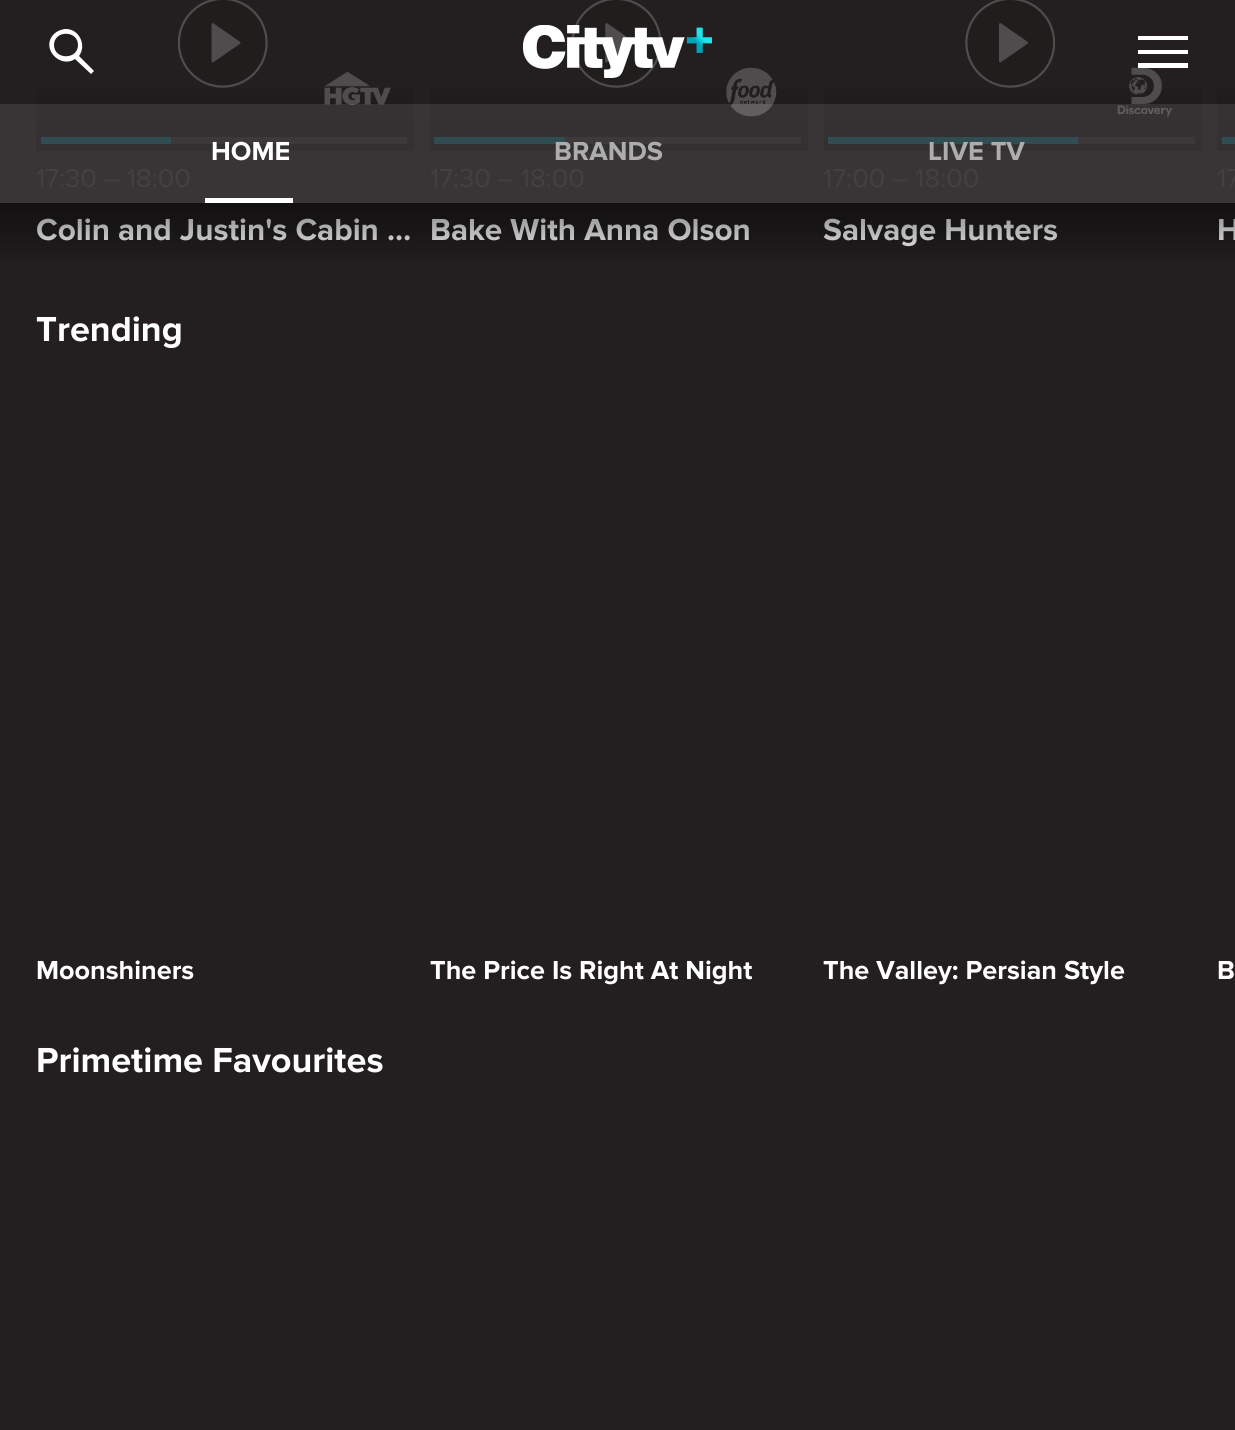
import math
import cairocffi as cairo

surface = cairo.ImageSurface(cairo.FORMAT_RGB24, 1235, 1430)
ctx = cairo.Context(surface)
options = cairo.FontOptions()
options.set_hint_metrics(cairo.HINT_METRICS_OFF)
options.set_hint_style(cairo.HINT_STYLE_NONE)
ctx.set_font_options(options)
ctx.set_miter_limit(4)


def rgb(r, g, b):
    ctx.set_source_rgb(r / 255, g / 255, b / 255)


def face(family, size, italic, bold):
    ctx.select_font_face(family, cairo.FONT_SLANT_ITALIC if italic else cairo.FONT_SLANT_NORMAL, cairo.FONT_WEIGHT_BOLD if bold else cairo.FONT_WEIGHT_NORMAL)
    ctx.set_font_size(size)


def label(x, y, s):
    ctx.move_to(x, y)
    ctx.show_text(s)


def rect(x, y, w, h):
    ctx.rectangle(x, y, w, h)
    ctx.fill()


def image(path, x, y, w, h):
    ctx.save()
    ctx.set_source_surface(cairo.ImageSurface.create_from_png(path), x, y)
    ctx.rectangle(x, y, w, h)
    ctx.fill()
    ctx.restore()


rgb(35, 31, 32)
ctx.paint()
rgb(255, 255, 255)
ctx.set_fill_rule(cairo.FILL_RULE_EVEN_ODD)
ctx.new_path()
ctx.move_to(66, 29)
ctx.curve_to(62, 29, 57, 31, 54, 34)
ctx.curve_to(40, 48, 60, 69, 75, 59)
ctx.line_to(91, 74)
ctx.line_to(94, 71)
ctx.line_to(79, 56)
ctx.curve_to(87, 45, 79, 29, 66, 29)
ctx.close_path()
ctx.move_to(54, 45)
ctx.curve_to(54, 30, 78, 30, 78, 45)
ctx.curve_to(78, 60, 54, 60, 54, 45)
ctx.close_path()
ctx.fill()
image('image3.png', 572, 0, 90, 88)
image('image0.png', 523, 25, 189, 53)
gradient = cairo.LinearGradient(1013, 43, 1013, 151)
gradient.add_color_stop_rgba(0, 0.137, 0.122, 0.125, 1)
gradient.add_color_stop_rgba(1, 0.114, 0.102, 0.106, 1)
ctx.set_source(gradient)
rect(824, 88, 378, 63)
image('image6.png', 1117, 67, 56, 50)
rgb(255, 255, 255)
ctx.new_path()
ctx.move_to(1138, 68)
ctx.line_to(1188, 68)
ctx.line_to(1188, 63)
ctx.line_to(1138, 63)
ctx.close_path()
ctx.move_to(1138, 54)
ctx.line_to(1188, 54)
ctx.line_to(1188, 50)
ctx.line_to(1138, 50)
ctx.close_path()
ctx.move_to(1138, 36)
ctx.line_to(1138, 40)
ctx.line_to(1188, 40)
ctx.line_to(1188, 36)
ctx.close_path()
ctx.fill()
gradient = cairo.LinearGradient(225, 43, 225, 151)
gradient.add_color_stop_rgba(0, 0.137, 0.122, 0.125, 1)
gradient.add_color_stop_rgba(1, 0.114, 0.102, 0.106, 1)
ctx.set_source(gradient)
rect(36, 88, 378, 63)
image('image2.png', 324, 71, 67, 34)
rgb(40, 36, 37)
rect(171, 137, 236, 7)
rgb(28, 58, 63)
rect(41, 137, 130, 7)
gradient = cairo.LinearGradient(619, 43, 619, 151)
gradient.add_color_stop_rgba(0, 0.137, 0.122, 0.125, 1)
gradient.add_color_stop_rgba(1, 0.114, 0.102, 0.106, 1)
ctx.set_source(gradient)
rect(430, 88, 378, 63)
image('image4.png', 726, 67, 51, 50)
rgb(40, 36, 37)
rect(565, 137, 236, 7)
rgb(28, 58, 63)
rect(434, 137, 131, 7)
rgb(40, 36, 37)
rect(1078, 137, 117, 7)
rgb(28, 58, 63)
rect(828, 137, 250, 7)
gradient = cairo.LinearGradient(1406, 43, 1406, 151)
gradient.add_color_stop_rgba(0, 0.137, 0.122, 0.125, 1)
gradient.add_color_stop_rgba(1, 0.114, 0.102, 0.106, 1)
ctx.set_source(gradient)
rect(1217, 88, 18, 63)
rgb(28, 58, 63)
rect(1222, 137, 13, 7)
ctx.set_source_rgba(1, 1, 1, 0.1)
rect(0, 104, 1235, 99)
face('Proxima Nova', 27, 0, 1)
rgb(255, 255, 255)
label(211, 160, 'HOME')
rect(205, 198, 88, 5)
rgb(174, 173, 173)
label(554, 160, 'BRANDS')
label(928, 160, 'LIVE TV')
face('Proxima Nova', 31.5, 0, 1)
rgb(255, 255, 255)
label(36, 240, 'Colin and Justin\'s Cabin …')
label(430, 240, 'Bake With Anna Olson')
label(823, 240, 'Salvage Hunters')
label(1217, 240, 'H')
gradient = cairo.LinearGradient(618, 202, 618, 270)
gradient.add_color_stop_rgba(0, 0, 0, 0, 0.5)
gradient.add_color_stop_rgba(1, 0, 0, 0, 0)
ctx.set_source(gradient)
rect(0, 203, 1235, 57)
image('image1.png', 178, 0, 90, 88)
face('Proxima Nova', 27, 0, 0)
rgb(67, 64, 64)
label(36, 187, '17:30 – 18:00')
label(430, 187, '17:30 – 18:00')
image('image5.png', 965, 0, 90, 88)
label(823, 187, '17:00 – 18:00')
label(1217, 187, '17')
face('Proxima Nova', 36, 0, 1)
rgb(255, 255, 255)
label(36, 341, 'Trending')
face('Proxima Nova', 27, 0, 1)
label(36, 979, 'Moonshiners')
label(430, 979, 'The Price Is Right At Night')
label(823, 979, 'The Valley: Persian Style')
label(1217, 979, 'B')
face('Proxima Nova', 36, 0, 1)
label(36, 1072, 'Primetime Favourites')
surface.write_to_png('render.png')
